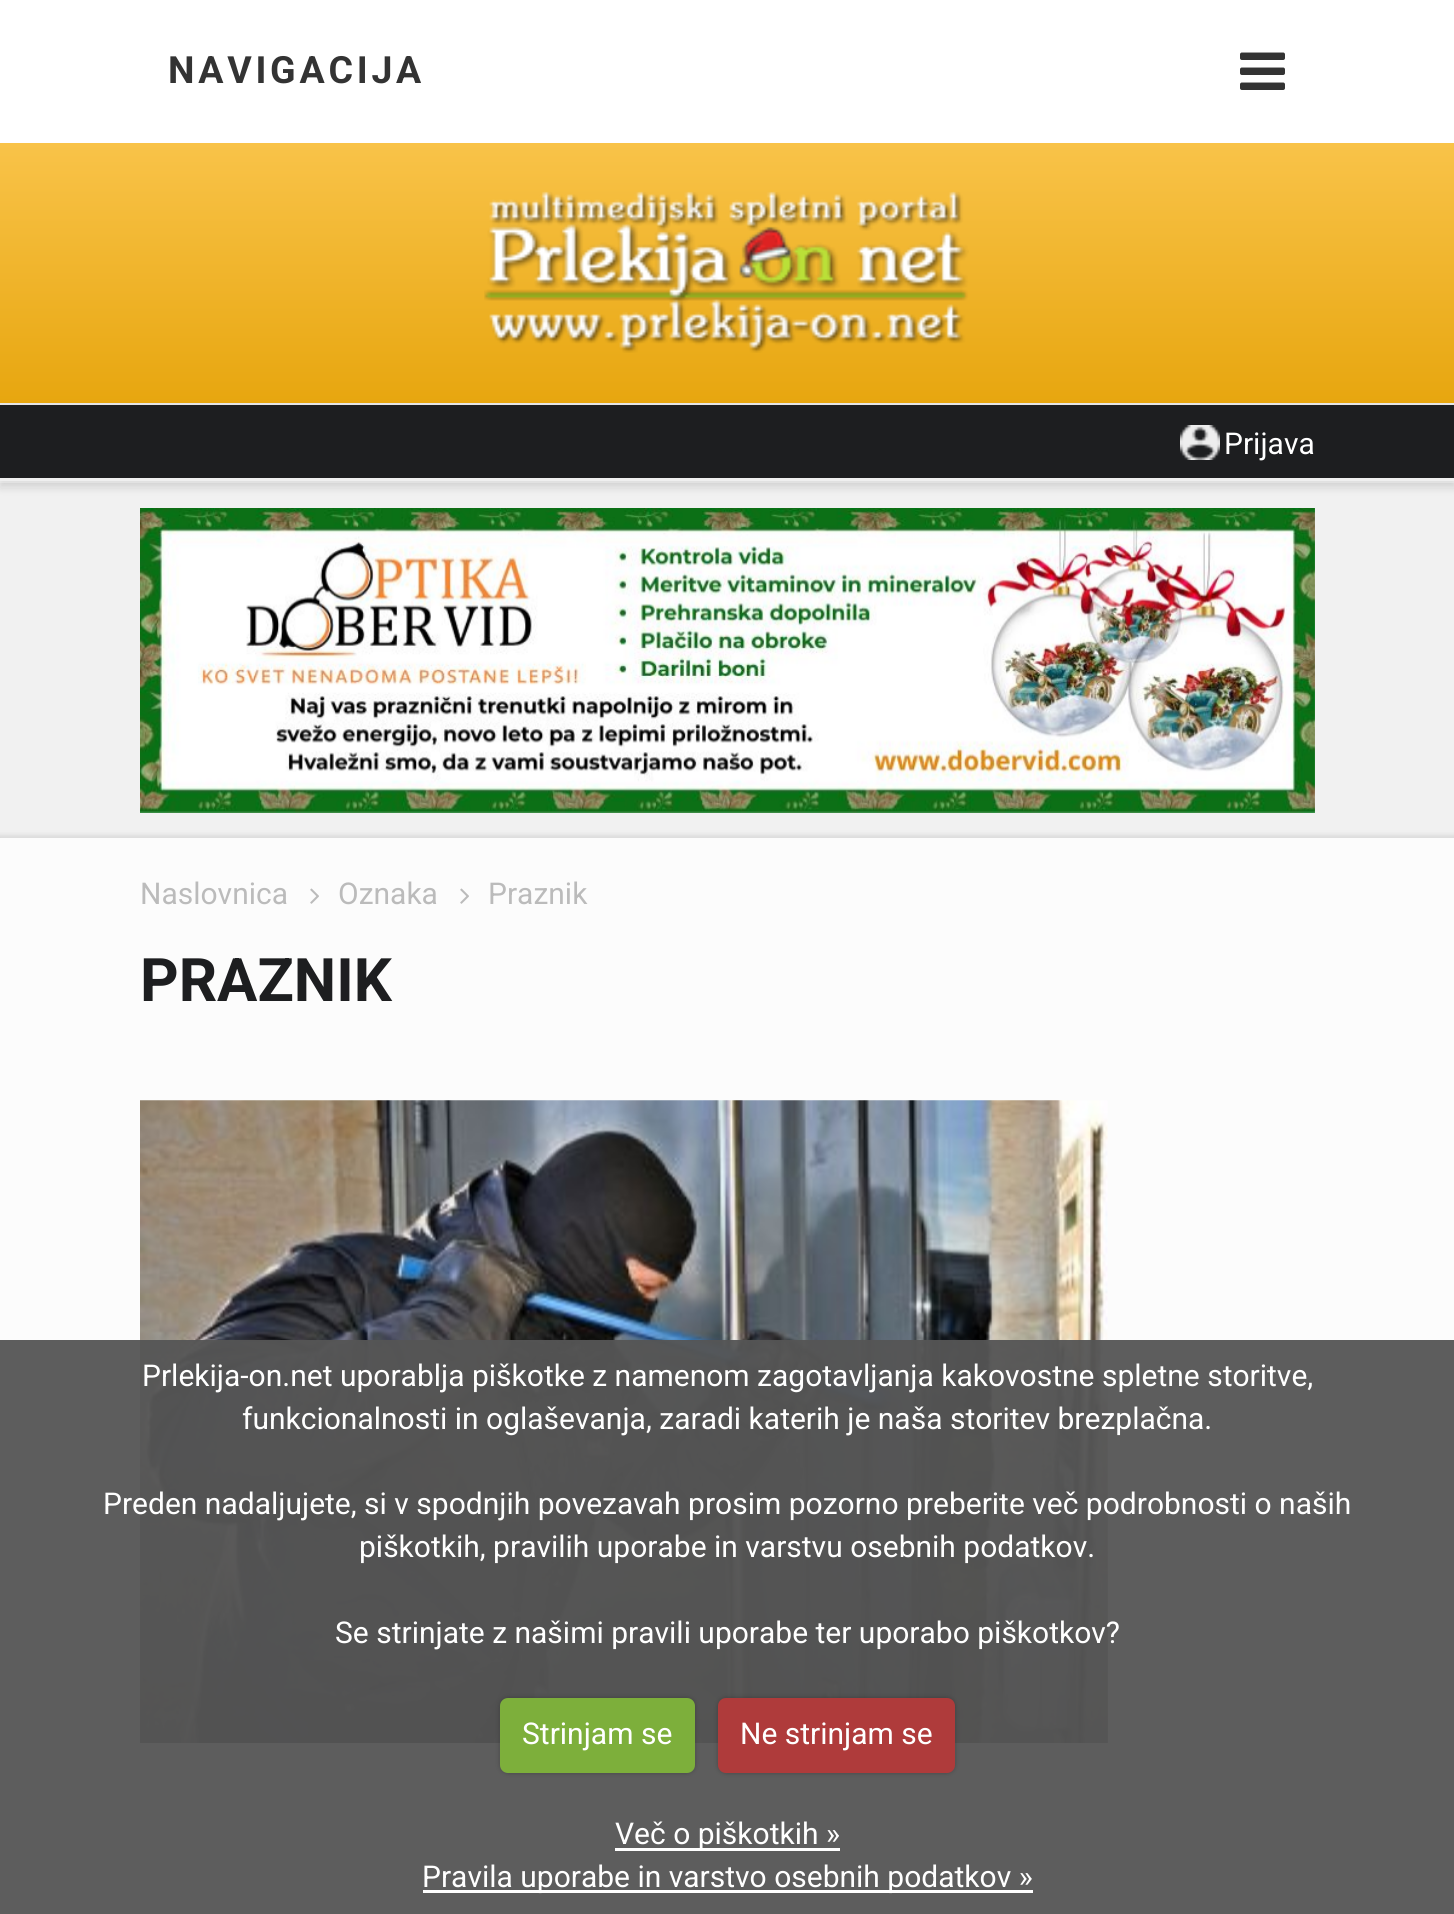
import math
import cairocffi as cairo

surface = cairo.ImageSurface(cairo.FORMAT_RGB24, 1454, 1914)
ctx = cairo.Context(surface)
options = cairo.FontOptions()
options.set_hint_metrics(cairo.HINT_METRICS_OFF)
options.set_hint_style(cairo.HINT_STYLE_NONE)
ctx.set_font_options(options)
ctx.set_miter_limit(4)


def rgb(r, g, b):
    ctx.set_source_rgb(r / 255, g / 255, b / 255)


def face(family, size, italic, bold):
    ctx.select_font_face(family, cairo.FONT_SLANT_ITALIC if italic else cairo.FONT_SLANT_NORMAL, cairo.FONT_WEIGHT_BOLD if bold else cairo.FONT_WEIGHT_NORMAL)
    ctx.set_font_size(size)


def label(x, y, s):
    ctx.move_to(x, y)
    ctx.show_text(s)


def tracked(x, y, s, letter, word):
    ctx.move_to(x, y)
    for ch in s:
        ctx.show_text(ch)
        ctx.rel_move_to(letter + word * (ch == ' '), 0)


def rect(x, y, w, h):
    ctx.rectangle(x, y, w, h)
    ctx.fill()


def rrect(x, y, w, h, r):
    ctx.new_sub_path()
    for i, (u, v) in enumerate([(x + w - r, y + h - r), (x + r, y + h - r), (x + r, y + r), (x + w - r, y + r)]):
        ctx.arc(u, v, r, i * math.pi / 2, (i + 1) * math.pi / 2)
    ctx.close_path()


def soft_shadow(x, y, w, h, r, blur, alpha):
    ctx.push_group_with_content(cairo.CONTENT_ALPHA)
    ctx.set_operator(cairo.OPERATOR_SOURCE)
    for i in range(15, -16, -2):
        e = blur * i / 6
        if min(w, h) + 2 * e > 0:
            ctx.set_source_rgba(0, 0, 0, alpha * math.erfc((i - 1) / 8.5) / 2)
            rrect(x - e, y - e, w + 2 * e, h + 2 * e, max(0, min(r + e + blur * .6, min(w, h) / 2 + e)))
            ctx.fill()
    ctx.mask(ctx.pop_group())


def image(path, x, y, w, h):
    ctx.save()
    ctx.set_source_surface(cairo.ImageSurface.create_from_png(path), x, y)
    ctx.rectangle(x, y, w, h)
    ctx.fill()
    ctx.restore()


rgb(241, 241, 241)
ctx.paint()
rgb(0, 0, 0)
soft_shadow(0, 5, 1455, 483, 0, 5, 0.08)
rgb(255, 255, 255)
rect(0, 0, 1454, 143)
rgb(239, 239, 239)
rect(0, 481, 1454, 2)
face('Roboto', 37.5, 0, 1)
rgb(51, 51, 51)
tracked(168, 83, 'NAVIGACIJA', 3.75, 0)
image('image0.png', 1240, 52, 45, 38)
gradient = cairo.LinearGradient(728, 142, 728, 403)
gradient.add_color_stop_rgba(0, 0.976, 0.765, 0.286, 1)
gradient.add_color_stop_rgba(1, 0.906, 0.651, 0.059, 1)
ctx.set_source(gradient)
rect(0, 143, 1454, 260)
rgb(231, 231, 231)
rect(0, 403, 1454, 2)
image('image1.png', 484, 191, 485, 162)
rgb(0, 0, 0)
soft_shadow(0, 410, 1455, 75, 0, 5, 0.08)
rgb(29, 30, 32)
rect(0, 405, 1454, 73)
rgb(239, 239, 239)
rect(0, 478, 1454, 3)
image('image2.png', 1180, 425, 40, 35)
face('Roboto', 30, 0, 0)
rgb(255, 255, 255)
label(1224, 454, 'Prijava')
image('image3.png', 140, 508, 1175, 305)
rgb(0, 0, 0)
soft_shadow(-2, 835, 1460, 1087, 0, 2.5, 0.1)
rgb(252, 252, 252)
rect(0, 838, 1454, 1076)
rgb(187, 187, 187)
label(140, 904, 'Naslovnica')
image('image4.png', 310, 888, 9, 16)
label(338, 904, 'Oznaka')
image('image4.png', 460, 888, 9, 16)
label(488, 904, 'Praznik')
face('Roboto', 60, 0, 1)
rgb(29, 30, 32)
label(140, 1001, 'PRAZNIK')
image('image5.png', 140, 1100, 968, 643)
gradient = cairo.LinearGradient(624, 1743, 624, 1100)
gradient.add_color_stop_rgba(0, 0, 0, 0, 0.5)
gradient.add_color_stop_rgba(0.6, 0, 0, 0, 0)
ctx.set_source(gradient)
rect(140, 1374, 968, 369)
ctx.set_source_rgba(0.337, 0.337, 0.337, 0.95)
rect(0, 1340, 1454, 574)
face('Roboto', 30, 0, 0)
rgb(255, 255, 255)
label(142, 1386, 'Prlekija-on.net uporablja piškotke z namenom zagotavljanja kakovostne spletne storitve,')
label(242, 1429, 'funkcionalnosti in oglaševanja, zaradi katerih je naša storitev brezplačna.')
label(103, 1514, 'Preden nadaljujete, si v spodnjih povezavah prosim pozorno preberite več podrobnosti o naših')
label(359, 1557, 'piškotkih, pravilih uporabe in varstvu osebnih podatkov.')
label(335, 1643, 'Se strinjate z našimi pravili uporabe ter uporabo piškotkov?')
rgb(0, 0, 0)
soft_shadow(500, 1698, 195, 75, 8, 2.5, 0.25)
rgb(125, 175, 59)
rrect(500, 1698, 195, 75, 8)
ctx.fill()
rgb(255, 255, 255)
label(522, 1744, 'Strinjam se')
rgb(0, 0, 0)
soft_shadow(718, 1698, 237, 75, 8, 2.5, 0.25)
rgb(175, 59, 59)
rrect(718, 1698, 237, 75, 8)
ctx.fill()
rgb(255, 255, 255)
label(740, 1744, 'Ne strinjam se')
rect(615, 1848, 225, 3)
label(615, 1844, 'Več o piškotkih »')
rect(423, 1890, 610, 3)
label(422, 1887, 'Pravila uporabe in varstvo osebnih podatkov »')
surface.write_to_png('render.png')
